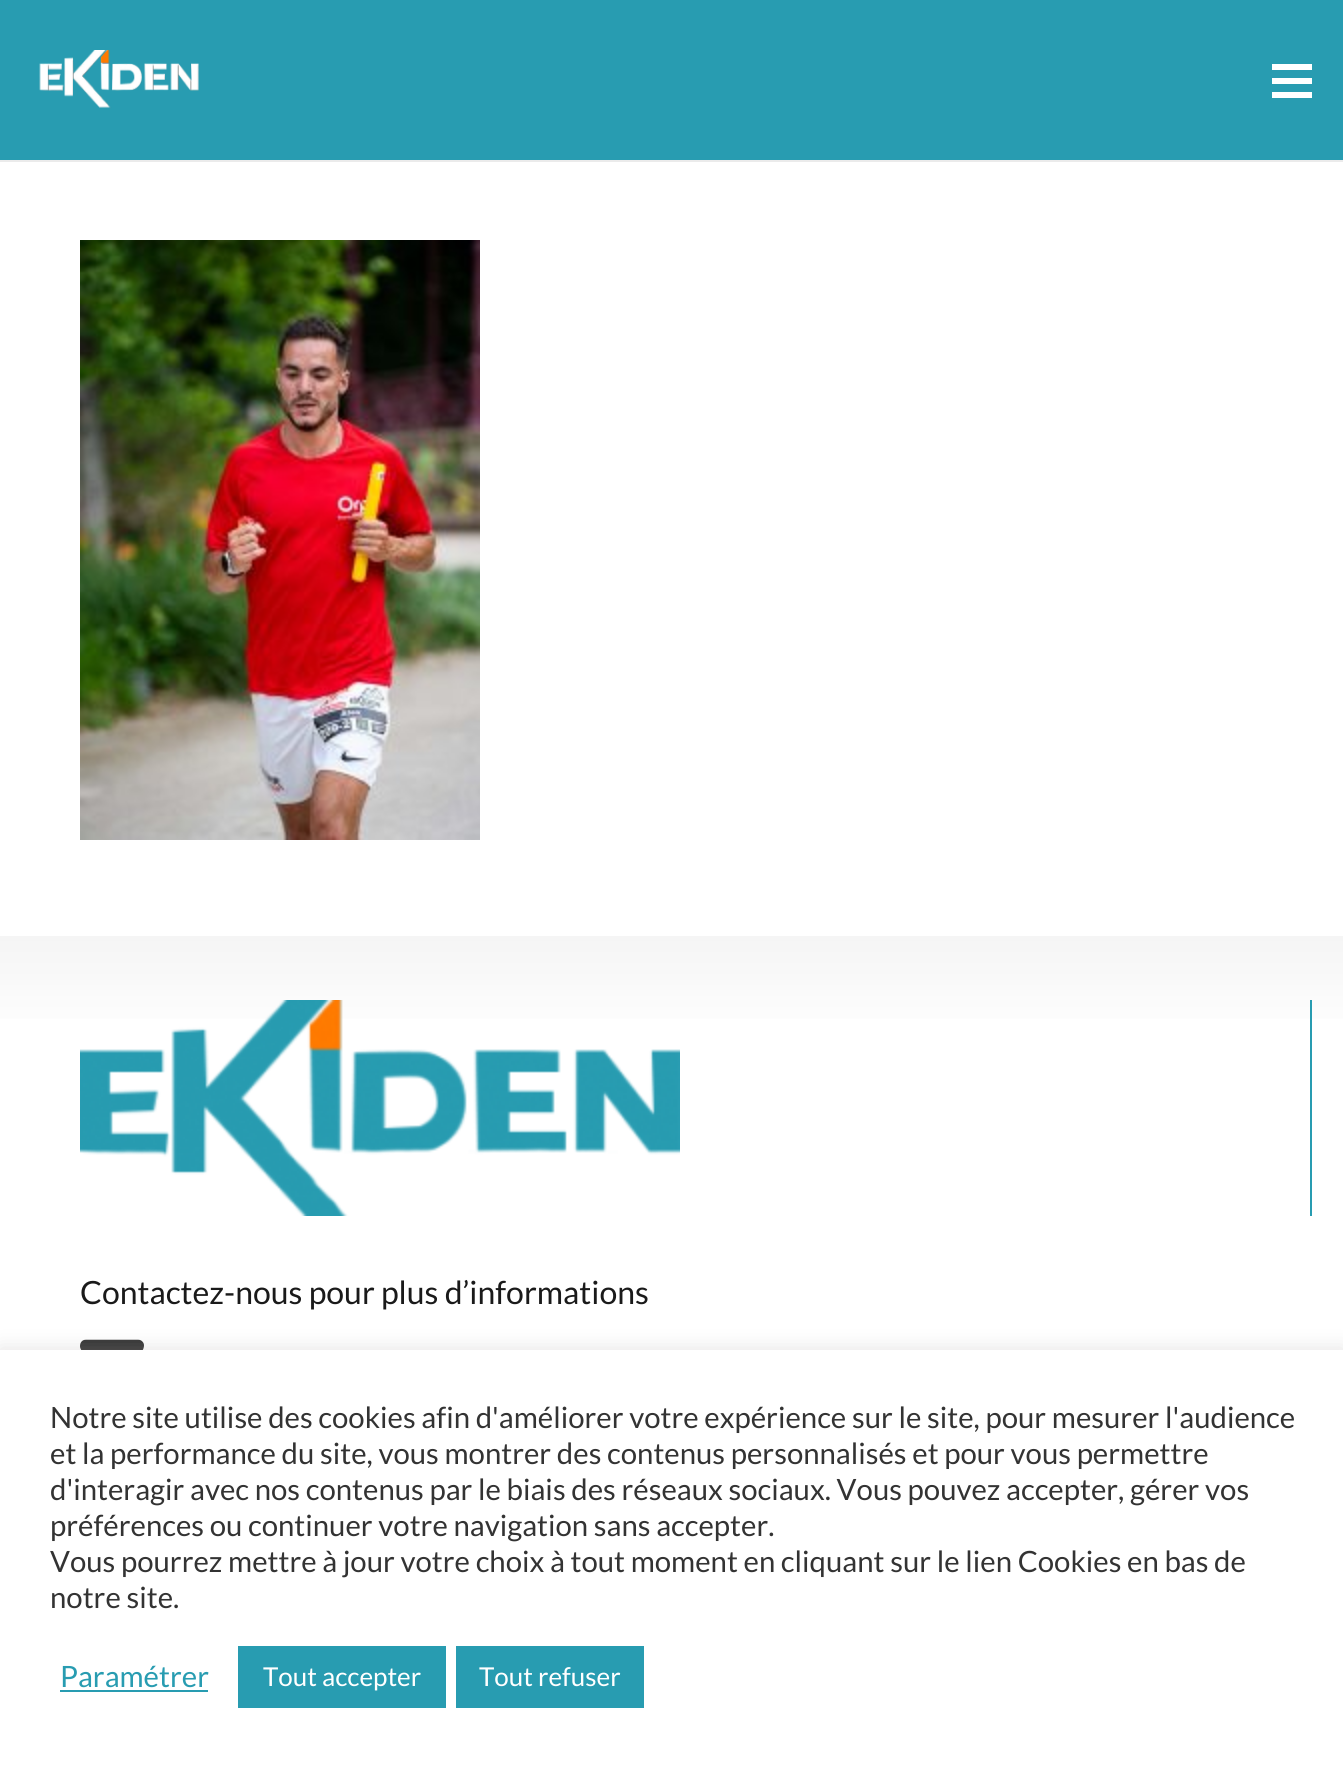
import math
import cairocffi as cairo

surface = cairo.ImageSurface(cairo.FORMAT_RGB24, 1343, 1768)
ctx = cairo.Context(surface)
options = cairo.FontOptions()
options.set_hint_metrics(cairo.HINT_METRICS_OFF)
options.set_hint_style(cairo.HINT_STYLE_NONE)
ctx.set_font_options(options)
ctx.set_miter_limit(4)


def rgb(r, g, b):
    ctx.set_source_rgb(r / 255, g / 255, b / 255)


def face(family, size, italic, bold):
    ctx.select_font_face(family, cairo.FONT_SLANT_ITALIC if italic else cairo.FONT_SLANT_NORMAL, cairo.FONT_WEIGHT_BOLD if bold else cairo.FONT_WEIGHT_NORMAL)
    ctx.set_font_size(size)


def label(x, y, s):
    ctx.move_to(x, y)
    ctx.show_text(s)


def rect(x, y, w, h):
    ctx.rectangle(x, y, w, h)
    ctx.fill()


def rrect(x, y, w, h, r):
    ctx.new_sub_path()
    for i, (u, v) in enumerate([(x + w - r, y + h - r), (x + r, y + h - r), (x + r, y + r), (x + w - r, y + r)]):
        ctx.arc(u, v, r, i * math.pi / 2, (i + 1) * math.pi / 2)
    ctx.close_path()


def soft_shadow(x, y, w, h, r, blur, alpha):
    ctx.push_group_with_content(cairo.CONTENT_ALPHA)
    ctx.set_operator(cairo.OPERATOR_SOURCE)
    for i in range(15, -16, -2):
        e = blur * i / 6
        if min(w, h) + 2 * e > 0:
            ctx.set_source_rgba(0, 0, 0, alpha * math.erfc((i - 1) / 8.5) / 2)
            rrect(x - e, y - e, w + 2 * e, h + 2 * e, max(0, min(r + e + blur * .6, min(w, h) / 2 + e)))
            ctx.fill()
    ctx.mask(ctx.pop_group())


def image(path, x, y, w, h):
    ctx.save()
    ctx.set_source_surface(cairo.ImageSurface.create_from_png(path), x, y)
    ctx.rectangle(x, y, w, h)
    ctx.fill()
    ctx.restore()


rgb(255, 255, 255)
ctx.paint()
rgb(235, 235, 235)
rect(0, 160, 1343, 2)
rgb(40, 156, 177)
rect(0, 0, 1343, 160)
image('image0.png', 39, 50, 160, 59)
rgb(255, 255, 255)
rect(1272, 78, 40, 6)
rect(1272, 64, 40, 6)
rect(1272, 92, 40, 6)
image('image1.png', 80, 240, 400, 600)
gradient = cairo.LinearGradient(672, 936, 672, 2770)
gradient.add_color_stop_rgba(0, 0.961, 0.961, 0.961, 1)
gradient.add_color_stop_rgba(0.06, 1, 1, 1, 1)
ctx.set_source(gradient)
rect(0, 936, 1343, 83)
rgb(40, 156, 177)
rect(1310, 1000, 2, 216)
image('image2.png', 80, 1000, 600, 216)
face('Lato', 32, 0, 0)
rgb(26, 26, 26)
label(80, 1304, 'Contactez-nous pour plus d’informations')
image('image3.png', 80, 1339, 64, 11)
rgb(172, 171, 171)
soft_shadow(0, 1348, 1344, 418, 0, 10, 0.3)
rgb(255, 255, 255)
rect(0, 1350, 1343, 418)
face('Lato', 29.35, 0, 0)
rgb(51, 51, 51)
label(50, 1428, 'Notre site utilise des cookies afin d\'améliorer votre expérience sur le site, pour mesurer l\'audience')
label(50, 1464, 'et la performance du site, vous montrer des contenus personnalisés et pour vous permettre')
label(50, 1500, 'd\'interagir avec nos contenus par le biais des réseaux sociaux. Vous pouvez accepter, gérer vos')
label(50, 1536, 'préférences ou continuer votre navigation sans accepter.')
label(50, 1572, 'Vous pourrez mettre à jour votre choix à tout moment en cliquant sur le lien Cookies en bas de')
label(50, 1608, 'notre site.')
rgb(40, 156, 177)
label(60, 1687, 'Paramétrer')
rect(60, 1690, 148, 2)
rect(238, 1646, 208, 62)
face('Lato', 26, 0, 0)
rgb(255, 255, 255)
label(263, 1686, 'Tout accepter')
rgb(40, 156, 177)
rect(456, 1646, 188, 62)
rgb(255, 255, 255)
label(479, 1686, 'Tout refuser')
surface.write_to_png('render.png')
